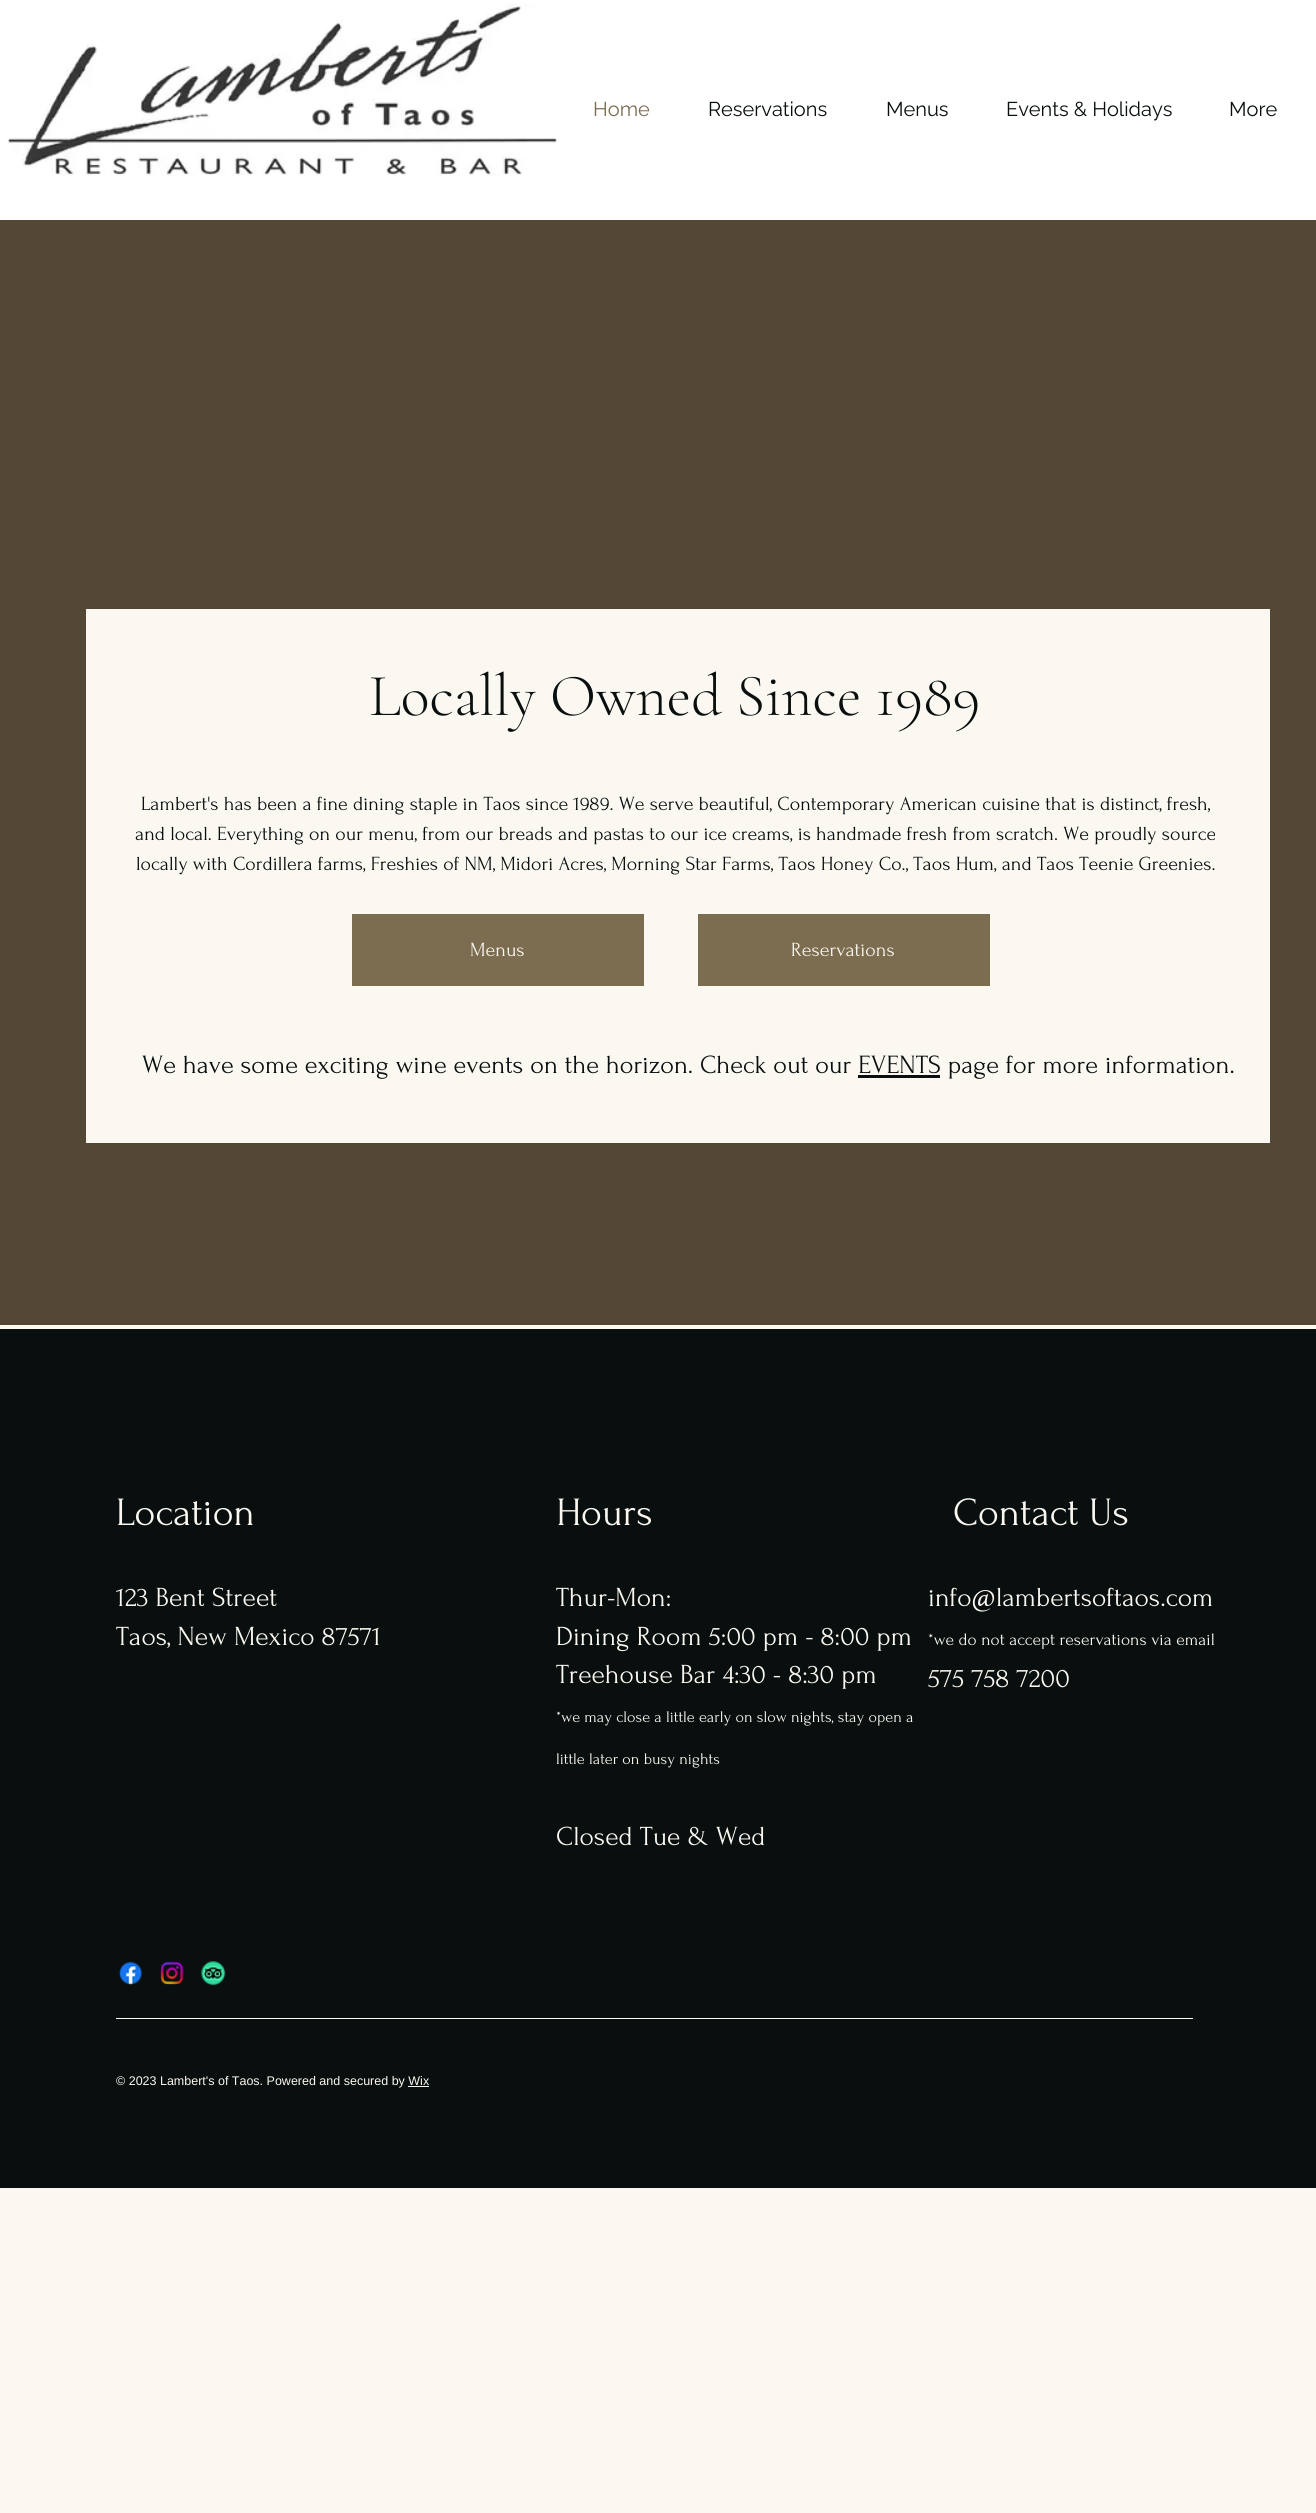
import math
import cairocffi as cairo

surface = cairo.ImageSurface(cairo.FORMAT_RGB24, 1316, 2513)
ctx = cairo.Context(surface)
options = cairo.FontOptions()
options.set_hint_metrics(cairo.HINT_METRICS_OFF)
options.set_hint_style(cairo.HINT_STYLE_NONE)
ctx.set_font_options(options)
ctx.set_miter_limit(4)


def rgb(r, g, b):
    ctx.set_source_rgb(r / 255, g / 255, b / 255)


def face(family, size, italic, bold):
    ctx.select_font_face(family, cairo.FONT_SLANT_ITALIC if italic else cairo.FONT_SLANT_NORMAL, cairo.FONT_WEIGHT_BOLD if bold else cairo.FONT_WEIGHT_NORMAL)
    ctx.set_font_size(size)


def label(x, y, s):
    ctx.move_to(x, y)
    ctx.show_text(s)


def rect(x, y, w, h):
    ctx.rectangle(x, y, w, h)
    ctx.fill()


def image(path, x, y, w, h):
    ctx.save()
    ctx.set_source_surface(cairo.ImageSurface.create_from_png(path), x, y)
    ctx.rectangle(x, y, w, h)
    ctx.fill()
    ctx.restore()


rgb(250, 248, 241)
ctx.paint()
rgb(255, 255, 255)
rect(0, 0, 1316, 220)
image('image0.png', 7, 4, 550, 172)
face('Raleway', 20, 0, 0)
rgb(124, 108, 80)
label(593, 116, 'Home')
rgb(9, 15, 15)
label(708, 116, 'Reservations')
label(886, 116, 'Menus')
label(1006, 116, 'Events & Holidays')
label(1229, 116, 'More')
rgb(83, 72, 53)
rect(0, 220, 1316, 1105)
rgb(250, 248, 241)
rect(86, 609, 1184, 534)
face('Cormorant Garamond Light', 60, 0, 0)
rgb(9, 15, 15)
label(369, 715, 'Locally Owned Since 1989')
face('Forum', 20, 0, 0)
label(141, 810, 'Lambert\'s has been a fine dining staple in Taos since 1989. We serve beautiful, Contemporary American cuisine that is distinct, fresh,')
label(135, 840, 'and local. Everything on our menu, from our breads and pastas to our ice creams, is handmade fresh from scratch. We proudly source')
label(136, 870, 'locally with Cordillera farms, Freshies of NM, Midori Acres, Morning Star Farms, Taos Honey Co., Taos Hum, and Taos Teenie Greenies.')
rgb(124, 108, 80)
rect(352, 914, 292, 72)
rgb(250, 248, 241)
label(470, 956, 'Menus')
rgb(124, 108, 80)
rect(698, 914, 292, 72)
rgb(250, 248, 241)
label(791, 956, 'Reservations')
face('Forum', 26.25, 0, 0)
rgb(9, 15, 15)
label(142, 1073, 'We have some exciting wine events on the horizon. Check out our EVENTS page for more information.')
rect(858, 1075, 82, 3)
rect(0, 1329, 1316, 859)
face('Forum', 40, 0, 0)
rgb(250, 248, 241)
label(116, 1525, 'Location')
label(556, 1525, 'Hours')
label(953, 1525, 'Contact Us')
face('Forum', 27.5, 0, 0)
label(116, 1606, '123 Bent Street')
label(116, 1645, 'Taos, New Mexico 87571')
label(556, 1606, 'Thur-Mon:')
label(556, 1645, 'Dining Room 5:00 pm - 8:00 pm')
label(556, 1683, 'Treehouse Bar 4:30 - 8:30 pm')
face('Forum', 16.25, 0, 0)
label(556, 1722, '*we may close a little early on slow nights, stay open a')
label(556, 1764, 'little later on busy nights')
face('Forum', 27.5, 0, 0)
label(556, 1845, 'Closed Tue & Wed')
label(928, 1606, 'info@lambertsoftaos.com')
face('Forum', 17.5, 0, 0)
label(928, 1645, '*we do not accept reservations via email')
face('Forum', 27.5, 0, 0)
label(928, 1687, '575 758 7200')
image('image1.png', 118, 1961, 25, 24)
image('image2.png', 160, 1961, 24, 24)
image('image3.png', 201, 1961, 25, 25)
rect(116, 2018, 1077, 1)
face('Liberation Sans', 12.5, 0, 0)
label(116, 2085, '© 2023 Lambert\'s of Taos. Powered and secured by Wix')
rect(408, 2086, 21, 1)
surface.write_to_png('render.png')
